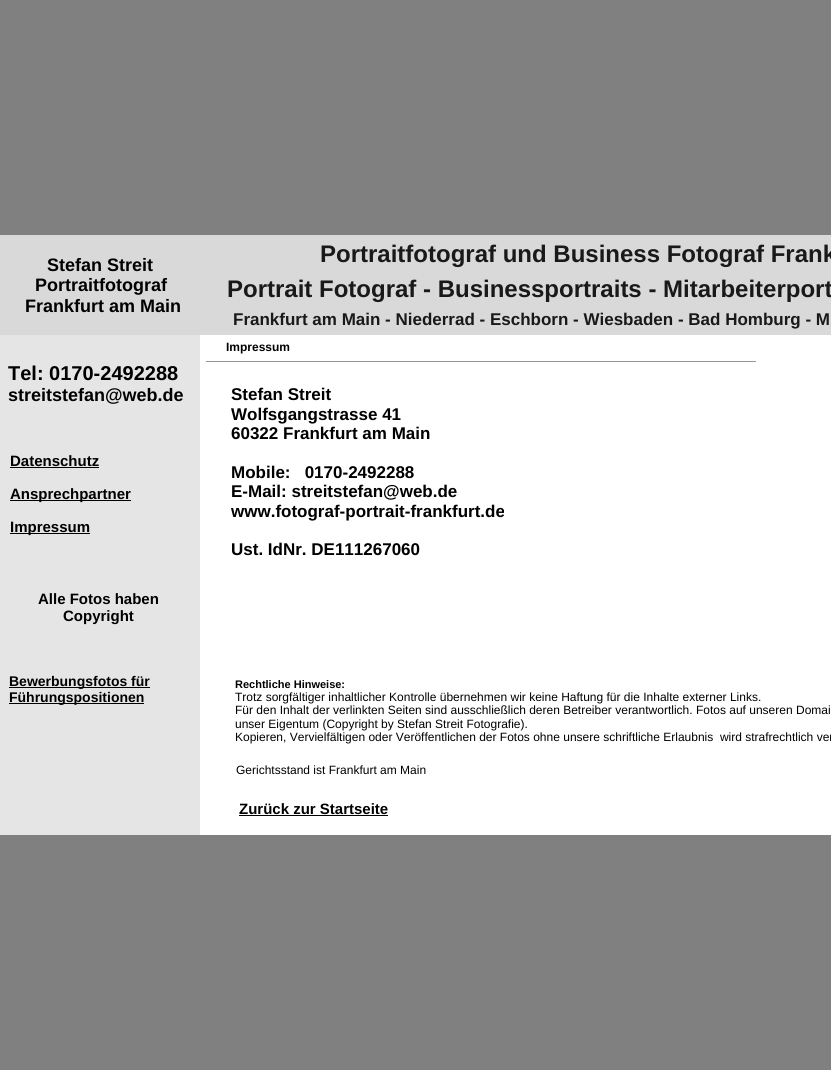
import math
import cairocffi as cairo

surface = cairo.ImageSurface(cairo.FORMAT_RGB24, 831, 1070)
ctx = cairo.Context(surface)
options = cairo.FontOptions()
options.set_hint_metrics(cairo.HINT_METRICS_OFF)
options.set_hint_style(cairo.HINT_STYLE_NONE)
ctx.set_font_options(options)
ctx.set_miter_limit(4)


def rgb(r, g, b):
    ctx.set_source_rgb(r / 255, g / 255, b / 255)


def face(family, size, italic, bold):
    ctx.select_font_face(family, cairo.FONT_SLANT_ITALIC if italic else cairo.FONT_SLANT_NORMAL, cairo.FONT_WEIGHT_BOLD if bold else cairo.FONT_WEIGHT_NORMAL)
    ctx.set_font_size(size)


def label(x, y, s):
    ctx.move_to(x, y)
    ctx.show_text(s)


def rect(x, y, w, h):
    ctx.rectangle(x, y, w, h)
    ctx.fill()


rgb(128, 128, 128)
ctx.paint()
rgb(255, 255, 255)
rect(200, 335, 631, 500)
rgb(217, 217, 217)
rect(0, 235, 831, 100)
face('Liberation Sans', 18, 0, 1)
rgb(0, 0, 0)
label(47, 271, 'Stefan Streit')
label(35, 291, 'Portraitfotograf')
label(25, 312, 'Frankfurt am Main')
face('Liberation Sans', 24, 0, 1)
rgb(25, 25, 25)
label(320, 262, 'Portraitfotograf und Business Fotograf Frank')
label(227, 297, 'Portrait Fotograf - Businessportraits - Mitarbeiterport')
face('Liberation Sans', 17, 0, 1)
label(233, 325, 'Frankfurt am Main - Niederrad - Eschborn - Wiesbaden - Bad Homburg - M')
rgb(150, 150, 150)
rect(206, 361, 550, 1)
face('Liberation Sans', 12, 0, 1)
rgb(0, 0, 0)
label(226, 351, 'Impressum')
rgb(229, 229, 229)
rect(0, 335, 200, 500)
face('Liberation Sans', 20, 0, 1)
rgb(0, 0, 0)
label(8, 380, 'Tel: 0170-2492288')
face('Liberation Sans', 18, 0, 1)
label(8, 401, 'streitstefan@web.de')
face('Liberation Sans', 15, 0, 1)
label(10, 466, 'Datenschutz')
rect(10, 467, 89, 1)
rect(10, 500, 121, 1)
label(10, 499, 'Ansprechpartner')
rect(10, 533, 80, 1)
label(10, 532, 'Impressum')
label(38, 604, 'Alle Fotos haben')
label(63, 621, 'Copyright')
rect(9, 687, 141, 1)
face('Liberation Sans', 14, 0, 1)
label(9, 686, 'Bewerbungsfotos für')
rect(9, 703, 135, 1)
label(9, 702, 'Führungspositionen')
face('Liberation Sans', 17, 0, 1)
label(231, 400, 'Stefan Streit')
label(231, 420, 'Wolfsgangstrasse 41')
label(231, 439, '60322 Frankfurt am Main')
label(231, 478, 'Mobile:   0170-2492288')
label(231, 497, 'E-Mail: streitstefan@web.de')
label(231, 517, 'www.fotograf-portrait-frankfurt.de')
label(231, 555, 'Ust. IdNr. DE111267060')
face('Liberation Sans', 11, 0, 1)
label(235, 688, 'Rechtliche Hinweise:')
face('Liberation Sans', 12, 0, 0)
label(235, 701, 'Trotz sorgfältiger inhaltlicher Kontrolle übernehmen wir keine Haftung für die Inhalte externer Links.')
label(235, 714, 'Für den Inhalt der verlinkten Seiten sind ausschließlich deren Betreiber verantwortlich. Fotos auf unseren Domai')
label(235, 728, 'unser Eigentum (Copyright by Stefan Streit Fotografie).')
label(235, 741, 'Kopieren, Vervielfältigen oder Veröffentlichen der Fotos ohne unsere schriftliche Erlaubnis  wird strafrechtlich ver')
label(236, 774, 'Gerichtsstand ist Frankfurt am Main')
face('Liberation Sans', 15, 0, 1)
label(239, 814, 'Zurück zur Startseite')
rect(239, 815, 149, 1)
surface.write_to_png('render.png')
